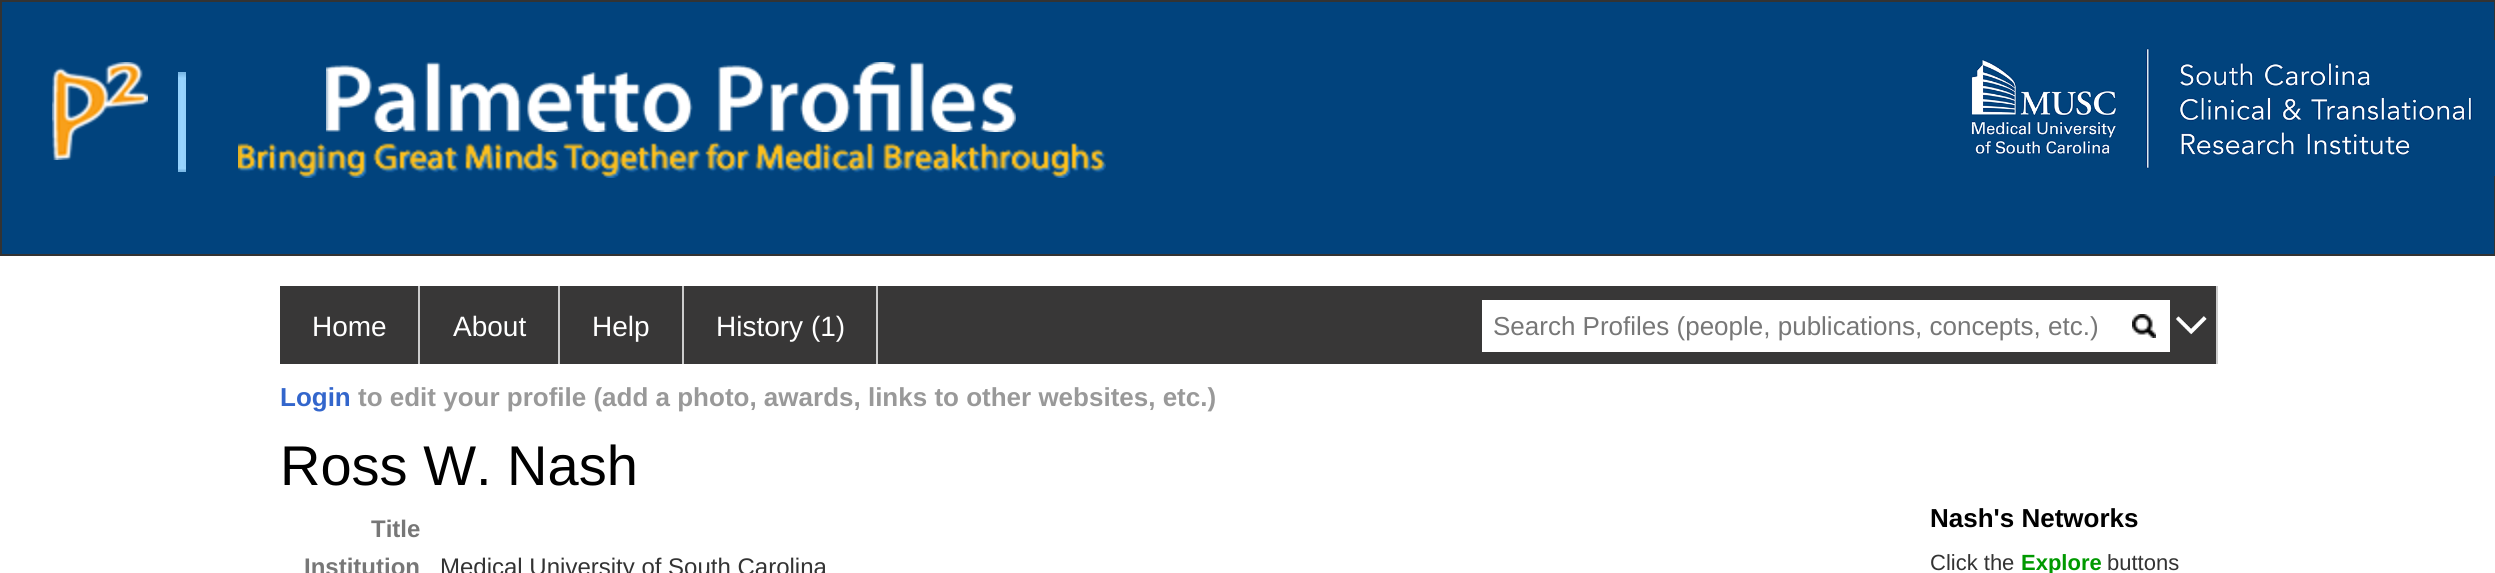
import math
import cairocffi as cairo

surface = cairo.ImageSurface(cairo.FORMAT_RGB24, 2495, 573)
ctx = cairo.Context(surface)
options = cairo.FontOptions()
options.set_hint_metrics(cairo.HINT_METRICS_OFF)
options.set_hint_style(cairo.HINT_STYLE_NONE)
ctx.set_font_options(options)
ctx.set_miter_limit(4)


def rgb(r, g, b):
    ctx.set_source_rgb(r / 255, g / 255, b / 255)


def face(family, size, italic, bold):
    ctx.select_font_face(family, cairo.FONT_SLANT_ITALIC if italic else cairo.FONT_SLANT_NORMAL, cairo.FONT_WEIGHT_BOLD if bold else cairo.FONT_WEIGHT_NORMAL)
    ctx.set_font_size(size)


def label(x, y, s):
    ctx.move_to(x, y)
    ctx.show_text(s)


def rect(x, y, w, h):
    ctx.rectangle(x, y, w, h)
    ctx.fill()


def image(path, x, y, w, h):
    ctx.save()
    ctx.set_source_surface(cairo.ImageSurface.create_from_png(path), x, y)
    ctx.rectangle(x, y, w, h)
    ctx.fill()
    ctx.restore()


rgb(255, 255, 255)
ctx.paint()
rgb(1, 67, 125)
ctx.rectangle(1, 1, 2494, 254)
ctx.fill_preserve()
rgb(51, 51, 51)
ctx.stroke()
image('image0.png', 52, 62, 96, 98)
image('image1.png', 178, 72, 8, 100)
image('image2.png', 326, 62, 690, 70)
image('image3.png', 238, 142, 868, 36)
image('image4.png', 1971, 40, 524, 136)
rgb(56, 55, 55)
rect(280, 286, 1936, 78)
rgb(204, 204, 204)
rect(418, 286, 2, 78)
face('Liberation Sans', 28, 0, 0)
rgb(255, 255, 255)
label(312, 336, 'Home')
rgb(204, 204, 204)
rect(558, 286, 2, 78)
rgb(255, 255, 255)
label(453, 336, 'About')
rgb(204, 204, 204)
rect(682, 286, 2, 78)
rgb(255, 255, 255)
label(592, 336, 'Help')
rgb(204, 204, 204)
rect(876, 286, 2, 78)
rgb(255, 255, 255)
label(716, 336, 'History (1)')
rect(1482, 300, 688, 52)
face('Liberation Sans', 26, 0, 0)
rgb(119, 119, 119)
label(1493, 335, 'Search Profiles (people, publications, concepts, etc.)')
image('image5.png', 2132, 314, 24, 24)
rgb(204, 204, 204)
rect(2216, 286, 2, 78)
image('image6.png', 2175, 316, 32, 19)
face('Liberation Sans', 26, 0, 1)
rgb(51, 102, 204)
label(280, 406, 'Login')
rgb(153, 153, 153)
label(358, 406, 'to edit your profile (add a photo, awards, links to other websites, etc.)')
face('Liberation Sans', 56, 0, 0)
rgb(0, 0, 0)
label(280, 485, 'Ross W. Nash')
face('Liberation Sans', 24, 0, 1)
rgb(119, 119, 119)
label(371, 537, 'Title')
label(304, 575, 'Institution')
face('Liberation Sans', 24, 0, 0)
rgb(51, 51, 51)
label(440, 575, 'Medical University of South Carolina')
face('Liberation Sans', 26, 0, 1)
rgb(0, 0, 0)
label(1930, 527, 'Nash\'s Networks')
face('Liberation Sans', 22, 0, 0)
rgb(51, 51, 51)
label(1930, 570, 'Click the')
face('Liberation Sans', 22, 0, 1)
rgb(0, 153, 0)
label(2021, 570, 'Explore')
face('Liberation Sans', 22, 0, 0)
rgb(51, 51, 51)
label(2107, 570, 'buttons')
surface.write_to_png('render.png')
